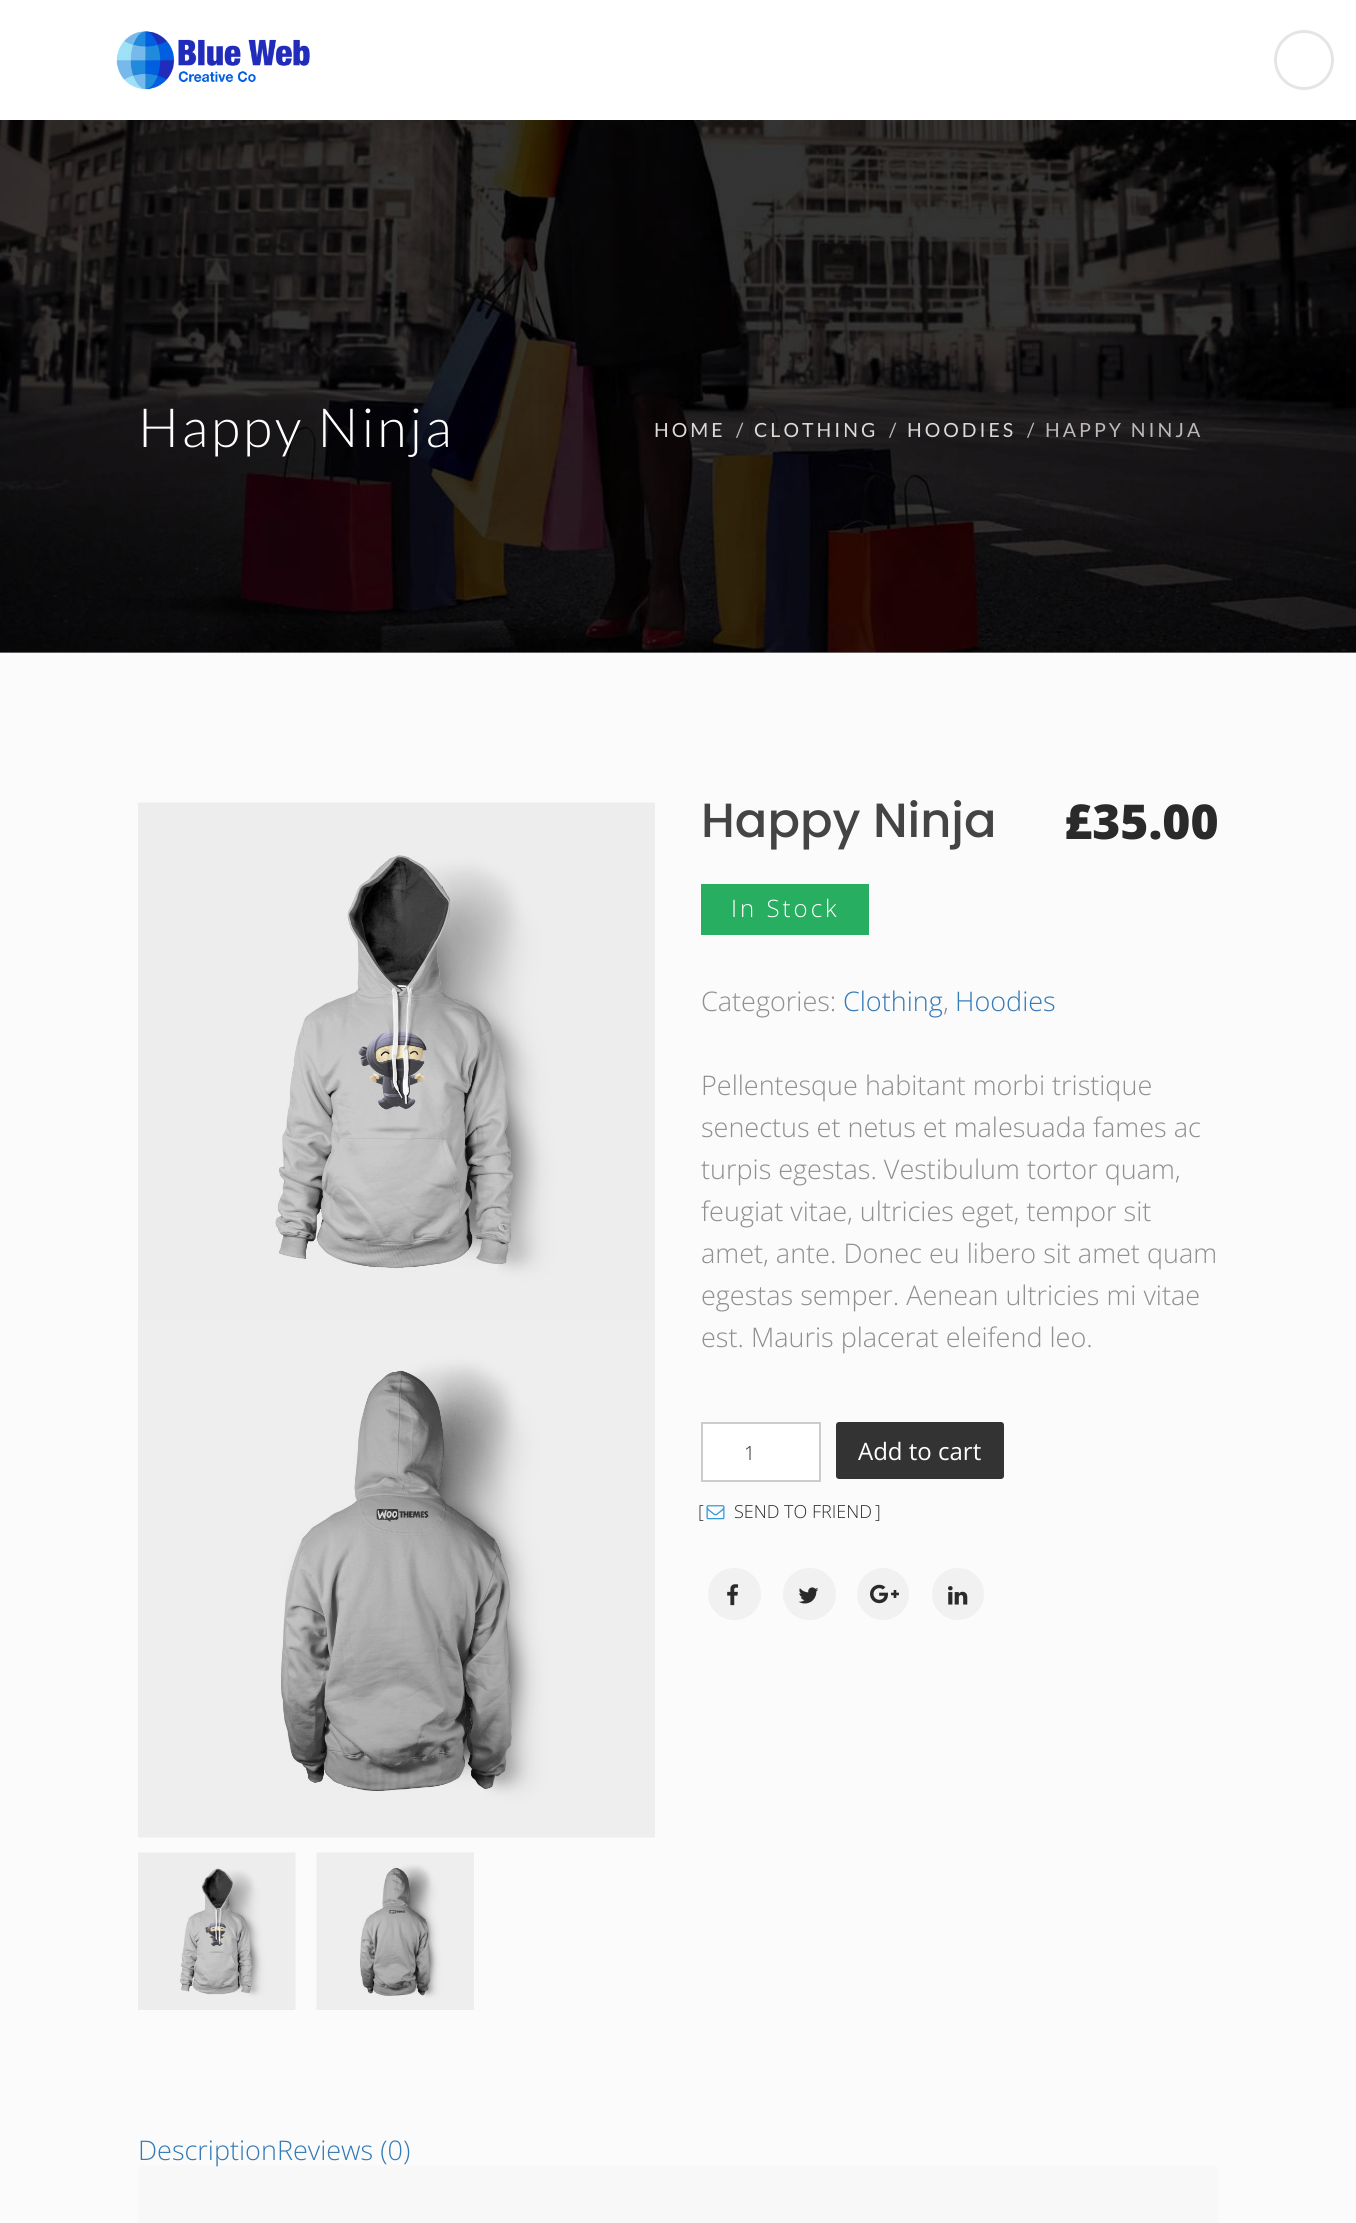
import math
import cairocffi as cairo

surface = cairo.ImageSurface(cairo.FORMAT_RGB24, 1356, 2223)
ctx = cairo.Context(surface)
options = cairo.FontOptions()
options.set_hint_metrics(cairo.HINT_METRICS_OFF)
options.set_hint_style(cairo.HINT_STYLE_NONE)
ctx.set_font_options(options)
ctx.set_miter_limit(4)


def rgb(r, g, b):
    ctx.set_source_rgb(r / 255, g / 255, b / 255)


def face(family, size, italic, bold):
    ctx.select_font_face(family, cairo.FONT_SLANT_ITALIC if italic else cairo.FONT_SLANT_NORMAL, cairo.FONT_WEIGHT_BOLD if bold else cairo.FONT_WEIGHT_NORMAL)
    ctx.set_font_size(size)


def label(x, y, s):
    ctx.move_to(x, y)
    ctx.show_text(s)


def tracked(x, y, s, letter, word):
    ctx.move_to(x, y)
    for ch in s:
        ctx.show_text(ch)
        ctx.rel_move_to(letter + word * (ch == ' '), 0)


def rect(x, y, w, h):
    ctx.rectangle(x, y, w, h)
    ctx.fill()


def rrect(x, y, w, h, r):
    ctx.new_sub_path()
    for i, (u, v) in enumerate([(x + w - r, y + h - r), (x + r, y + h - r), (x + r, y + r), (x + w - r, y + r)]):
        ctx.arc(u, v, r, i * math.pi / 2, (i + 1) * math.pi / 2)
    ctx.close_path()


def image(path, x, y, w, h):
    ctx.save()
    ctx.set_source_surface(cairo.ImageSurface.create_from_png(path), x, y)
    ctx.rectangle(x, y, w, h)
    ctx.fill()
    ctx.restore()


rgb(255, 255, 255)
ctx.paint()
image('image0.png', 116, 31, 194, 59)
ctx.arc(1304, 60, 28.5, 0, 2 * math.pi)
rgb(229, 229, 229)
ctx.set_line_width(3)
ctx.stroke()
rgb(251, 251, 251)
rect(0, 653, 1356, 1570)
rgb(126, 126, 126)
rect(0, 652, 1356, 1)
image('image1.png', 0, 120, 1356, 533)
face('Lato Light', 54, 0, 0)
rgb(255, 255, 255)
tracked(138, 447, 'Happy Ninja', 3, 0)
face('Lato', 19.5, 0, 0)
rgb(219, 219, 219)
tracked(654, 437, 'HOME', 3, 0)
rgb(187, 187, 187)
tracked(736, 437, '/', 3, 0)
rgb(219, 219, 219)
tracked(754, 437, 'CLOTHING', 3, 0)
rgb(187, 187, 187)
tracked(889, 437, '/', 3, 0)
rgb(219, 219, 219)
tracked(907, 437, 'HOODIES', 3, 0)
rgb(187, 187, 187)
tracked(1027, 437, '/', 3, 0)
tracked(1045, 437, 'HAPPY NINJA', 3, 0)
image('image2.png', 138, 802, 517, 518)
image('image3.png', 138, 1320, 517, 518)
image('image4.png', 138, 1852, 158, 158)
image('image5.png', 316, 1852, 158, 158)
face('Poppins Medium', 48, 0, 0)
rgb(68, 68, 68)
label(701, 837, 'Happy Ninja')
rgb(39, 174, 96)
rect(701, 884, 168, 51)
face('Open Sans Light', 24, 0, 0)
rgb(255, 255, 255)
tracked(731, 917, 'In Stock', 3, 0)
face('Open Sans ExtraBold', 48, 0, 0)
rgb(42, 42, 42)
label(1064, 839, '£35.00')
face('Open Sans Light', 27, 0, 0)
rgb(143, 143, 143)
label(701, 1011, 'Categories:')
rgb(51, 122, 183)
label(843, 1011, 'Clothing')
rgb(143, 143, 143)
label(943, 1011, ',')
rgb(51, 122, 183)
label(955, 1011, 'Hoodies')
rgb(143, 143, 143)
label(701, 1095, 'Pellentesque habitant morbi tristique')
label(701, 1137, 'senectus et netus et malesuada fames ac')
label(701, 1179, 'turpis egestas. Vestibulum tortor quam,')
label(701, 1221, 'feugiat vitae, ultricies eget, tempor sit')
label(701, 1263, 'amet, ante. Donec eu libero sit amet quam')
label(701, 1305, 'egestas semper. Aenean ultricies mi vitae')
label(701, 1347, 'est. Mauris placerat eleifend leo.')
rgb(255, 255, 255)
ctx.rectangle(702, 1423, 118, 58)
ctx.fill_preserve()
rgb(204, 204, 204)
ctx.set_line_width(2)
ctx.stroke()
face('Open Sans Light', 19.5, 0, 0)
rgb(42, 42, 42)
label(744, 1460, '1')
rgb(51, 51, 51)
rrect(836, 1422, 168, 57, 3)
ctx.fill()
face('Open Sans', 24, 0, 0)
rgb(255, 255, 255)
label(858, 1460, 'Add to cart')
face('Open Sans Light', 18, 0, 0)
rgb(42, 42, 42)
label(698, 1518, '[')
image('image6.png', 706, 1505, 19, 15)
label(734, 1518, 'SEND TO FRIEND')
label(875, 1518, ']')
rgb(241, 241, 241)
rrect(708, 1568, 53, 52, 26)
ctx.fill()
image('image7.png', 727, 1584, 12, 22)
rrect(783, 1568, 53, 52, 26)
ctx.fill()
image('image8.png', 798, 1587, 21, 17)
ctx.arc(883, 1594, 26, 0, 2 * math.pi)
ctx.fill()
image('image9.png', 870, 1584, 29, 20)
ctx.arc(958, 1594, 26, 0, 2 * math.pi)
ctx.fill()
image('image10.png', 948, 1586, 20, 19)
rgb(248, 248, 248)
rrect(138, 2165, 1080, 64, 6)
ctx.fill()
face('Open Sans Light', 27, 0, 0)
rgb(51, 122, 183)
label(138, 2160, 'DescriptionReviews (0)')
surface.write_to_png('render.png')
